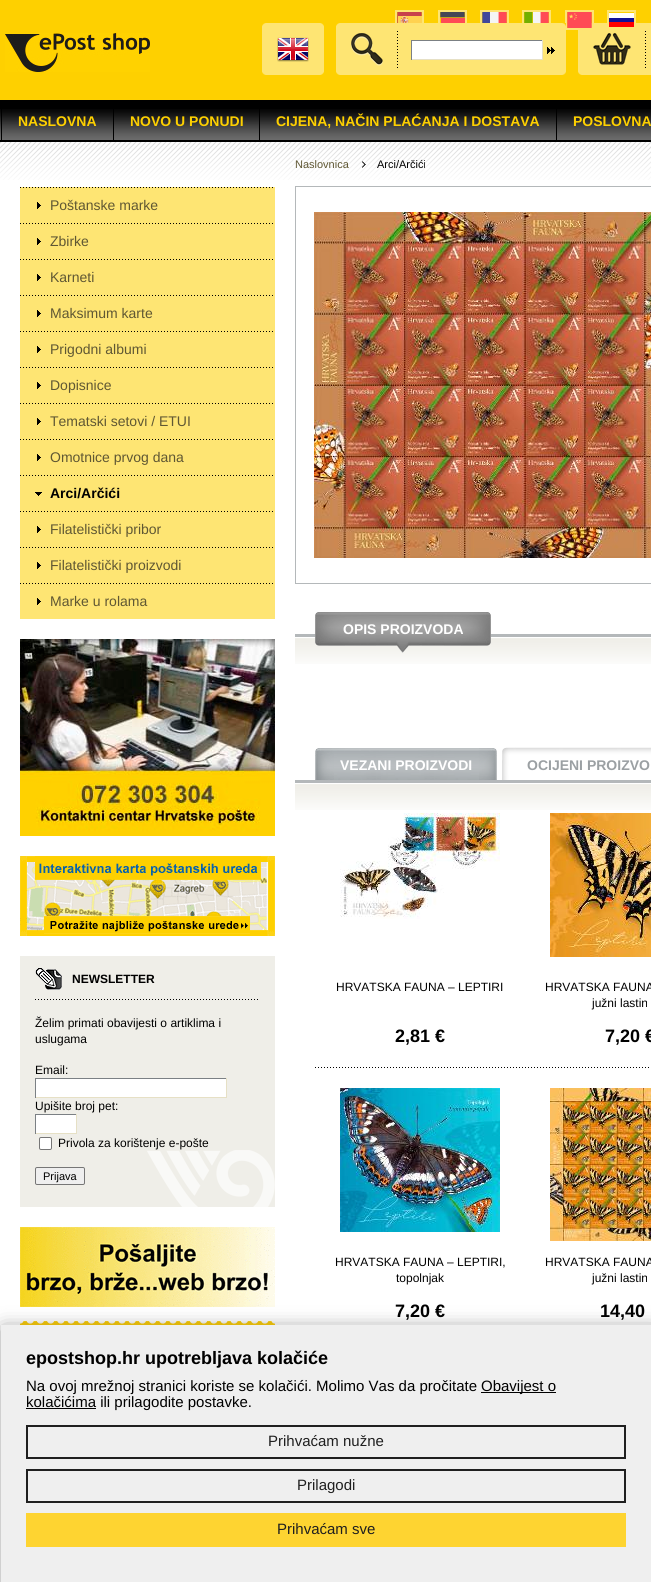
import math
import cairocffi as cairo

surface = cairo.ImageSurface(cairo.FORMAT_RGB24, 651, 1582)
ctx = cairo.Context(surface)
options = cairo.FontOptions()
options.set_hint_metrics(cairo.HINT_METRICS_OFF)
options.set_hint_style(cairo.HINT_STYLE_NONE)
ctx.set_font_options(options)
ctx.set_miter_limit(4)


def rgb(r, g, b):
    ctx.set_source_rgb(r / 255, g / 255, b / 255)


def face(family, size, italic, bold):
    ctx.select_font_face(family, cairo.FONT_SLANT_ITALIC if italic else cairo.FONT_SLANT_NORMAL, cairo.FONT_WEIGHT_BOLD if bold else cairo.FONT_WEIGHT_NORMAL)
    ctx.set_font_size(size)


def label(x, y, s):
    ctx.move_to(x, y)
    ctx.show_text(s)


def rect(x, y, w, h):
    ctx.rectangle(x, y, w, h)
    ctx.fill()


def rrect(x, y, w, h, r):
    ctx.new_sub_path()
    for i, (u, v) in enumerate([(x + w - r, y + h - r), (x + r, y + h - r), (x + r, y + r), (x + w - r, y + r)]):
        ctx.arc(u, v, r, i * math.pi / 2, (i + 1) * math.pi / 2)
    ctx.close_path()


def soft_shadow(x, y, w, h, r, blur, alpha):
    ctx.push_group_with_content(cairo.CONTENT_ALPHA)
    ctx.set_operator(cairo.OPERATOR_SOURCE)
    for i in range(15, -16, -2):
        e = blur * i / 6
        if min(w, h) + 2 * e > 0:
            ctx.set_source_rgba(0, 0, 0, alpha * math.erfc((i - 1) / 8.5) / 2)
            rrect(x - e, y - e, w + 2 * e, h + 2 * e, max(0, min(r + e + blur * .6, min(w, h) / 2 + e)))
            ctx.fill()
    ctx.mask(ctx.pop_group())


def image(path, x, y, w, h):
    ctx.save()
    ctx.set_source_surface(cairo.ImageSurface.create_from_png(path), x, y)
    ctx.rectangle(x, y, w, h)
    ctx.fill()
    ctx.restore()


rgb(254, 208, 0)
ctx.paint()
image('image9.png', 336, 23, 61, 52)
ctx.rectangle(396, 11, 27, 18)
rgb(254, 229, 115)
ctx.stroke()
image('image0.png', 397, 12, 25, 11)
ctx.rectangle(439, 11, 27, 18)
ctx.stroke()
image('image1.png', 440, 12, 25, 11)
ctx.rectangle(481, 11, 27, 18)
ctx.stroke()
image('image2.png', 482, 12, 25, 11)
ctx.rectangle(523, 11, 27, 18)
ctx.stroke()
image('image3.png', 524, 12, 25, 11)
image('image14.png', 578, 23, 73, 52)
ctx.rectangle(566, 11, 27, 18)
ctx.stroke()
image('image4.png', 567, 12, 25, 16)
ctx.rectangle(608, 11, 27, 18)
ctx.stroke()
rgb(255, 255, 255)
rect(609, 13, 25, 5)
rgb(16, 16, 153)
rect(609, 18, 25, 4)
rgb(255, 0, 0)
rect(609, 22, 25, 5)
image('image5.png', 5, 33, 145, 39)
image('image6.png', 262, 23, 58, 52)
image('image7.png', 320, 23, 4, 52)
image('image8.png', 277, 37, 32, 25)
image('image10.png', 397, 23, 169, 52)
image('image11.png', 397, 31, 1, 37)
image('image12.png', 351, 33, 32, 33)
rgb(255, 255, 255)
rect(412, 41, 130, 18)
rgb(123, 128, 132)
rect(411, 40, 132, 1)
rgb(230, 224, 197)
rect(542, 40, 1, 20)
rect(411, 59, 132, 1)
rgb(123, 128, 132)
rect(411, 40, 1, 20)
image('image13.png', 547, 47, 8, 7)
image('image11.png', 645, 31, 1, 37)
image('image15.png', 593, 33, 38, 32)
rgb(0, 0, 0)
rect(0, 100, 651, 42)
image('image16.png', 0, 109, 651, 31)
rect(113, 109, 1, 33)
rect(1, 109, 1, 33)
face('Liberation Sans', 14, 0, 1)
rgb(254, 208, 0)
label(18, 126, 'NASLOVNA')
rgb(0, 0, 0)
rect(259, 109, 1, 33)
rgb(254, 208, 0)
label(130, 126, 'NOVO U PONUDI')
rgb(0, 0, 0)
rect(556, 109, 1, 33)
rgb(254, 208, 0)
label(276, 126, 'CIJENA, NAČIN PLAĆANJA I DOSTAVA')
label(573, 126, 'POSLOVNA')
rgb(255, 255, 255)
rect(0, 180, 651, 1402)
image('image17.png', 0, 142, 651, 38)
rgb(254, 229, 115)
rect(20, 187, 255, 432)
image('image18.png', 20, 187, 253, 1)
image('image19.png', 37, 202, 4, 7)
face('Liberation Sans', 14, 0, 0)
rgb(95, 87, 51)
label(50, 210, 'Poštanske marke')
image('image18.png', 20, 223, 253, 1)
image('image19.png', 37, 238, 4, 7)
label(50, 246, 'Zbirke')
image('image18.png', 20, 259, 253, 1)
image('image19.png', 37, 274, 4, 7)
label(50, 282, 'Karneti')
image('image18.png', 20, 295, 253, 1)
image('image19.png', 37, 310, 4, 7)
label(50, 318, 'Maksimum karte')
image('image18.png', 20, 331, 253, 1)
image('image19.png', 37, 346, 4, 7)
label(50, 354, 'Prigodni albumi')
image('image18.png', 20, 367, 253, 1)
image('image19.png', 37, 382, 4, 7)
label(50, 390, 'Dopisnice')
image('image18.png', 20, 403, 253, 1)
image('image19.png', 37, 418, 4, 7)
label(50, 426, 'Tematski setovi / ETUI')
image('image18.png', 20, 439, 253, 1)
image('image19.png', 37, 454, 4, 7)
label(50, 462, 'Omotnice prvog dana')
image('image18.png', 20, 475, 253, 1)
image('image20.png', 35, 492, 7, 4)
face('Liberation Sans', 14, 0, 1)
rgb(0, 0, 0)
label(50, 498, 'Arci/Arčići')
image('image18.png', 20, 511, 253, 1)
image('image19.png', 37, 526, 4, 7)
face('Liberation Sans', 14, 0, 0)
rgb(95, 87, 51)
label(50, 534, 'Filatelistički pribor')
image('image18.png', 20, 547, 253, 1)
image('image19.png', 37, 562, 4, 7)
label(50, 570, 'Filatelistički proizvodi')
image('image18.png', 20, 583, 253, 1)
image('image19.png', 37, 598, 4, 7)
label(50, 606, 'Marke u rolama')
image('image21.png', 20, 639, 255, 197)
image('image22.png', 20, 856, 255, 80)
rgb(239, 238, 232)
rect(20, 956, 255, 251)
image('image23.png', 147, 1150, 128, 57)
image('image24.png', 35, 999, 223, 1)
image('image25.png', 35, 968, 27, 22)
face('Liberation Sans', 12, 0, 1)
rgb(0, 0, 0)
label(72, 983, 'NEWSLETTER')
face('Liberation Sans', 12, 0, 0)
label(35, 1027, 'Želim primati obavijesti o artiklima i')
label(35, 1043, 'uslugama')
label(35, 1074, 'Email:')
rgb(255, 255, 255)
rect(36, 1079, 190, 18)
rgb(123, 128, 132)
rect(35, 1078, 192, 1)
rgb(230, 224, 197)
rect(226, 1078, 1, 20)
rect(35, 1097, 192, 1)
rgb(123, 128, 132)
rect(35, 1078, 1, 20)
rgb(0, 0, 0)
label(35, 1110, 'Upišite broj pet:')
rgb(255, 255, 255)
rect(36, 1115, 40, 18)
rgb(123, 128, 132)
rect(35, 1114, 42, 1)
rgb(230, 224, 197)
rect(76, 1114, 1, 20)
rect(35, 1133, 42, 1)
rgb(123, 128, 132)
rect(35, 1114, 1, 20)
rgb(255, 255, 255)
rrect(39.5, 1137.5, 12, 12, 1.5)
ctx.fill_preserve()
rgb(118, 118, 118)
ctx.set_line_width(1)
ctx.stroke()
rgb(0, 0, 0)
label(58, 1147, 'Privola za korištenje e-pošte')
rgb(239, 239, 239)
rrect(35.5, 1167.5, 49, 17, 1.5)
ctx.fill_preserve()
rgb(118, 118, 118)
ctx.stroke()
face('Liberation Sans', 11, 0, 0)
rgb(0, 0, 0)
label(43, 1180, 'Prijava')
image('image26.png', 20, 1227, 255, 80)
image('image27.png', 20, 1321, 255, 4)
rgb(95, 87, 51)
label(295, 168, 'Naslovnica')
image('image28.png', 362, 161, 4, 7)
rgb(0, 0, 0)
label(377, 168, 'Arci/Arčići')
ctx.rectangle(295.5, 186.5, 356, 397)
rgb(180, 184, 186)
ctx.stroke()
image('image29.png', 314, 212, 337, 346)
image('image30.png', 295, 638, 356, 26)
rect(295, 634, 356, 3)
image('image31.png', 315, 612, 176, 41)
face('Liberation Sans', 14, 0, 1)
rgb(255, 255, 255)
label(343, 634, 'OPIS PROIZVODA')
image('image32.png', 315, 748, 164, 32)
image('image33.png', 479, 748, 18, 32)
label(340, 770, 'VEZANI PROIZVODI')
image('image34.png', 502, 747, 149, 33)
rgb(155, 160, 163)
label(527, 770, 'OCIJENI PROIZVO')
image('image30.png', 295, 784, 356, 26)
rgb(180, 184, 186)
rect(295, 780, 356, 3)
image('image35.png', 340, 813, 160, 106)
face('Liberation Sans', 12, 0, 0)
rgb(0, 0, 0)
label(336, 991, 'HRVATSKA FAUNA – LEPTIRI')
face('Liberation Sans', 18, 0, 1)
label(395, 1042, '2,81 €')
image('image36.png', 550, 813, 101, 144)
face('Liberation Sans', 12, 0, 0)
label(545, 991, 'HRVATSKA FAUNA')
label(592, 1007, 'južni lastin')
face('Liberation Sans', 18, 0, 1)
label(605, 1042, '7,20 €')
image('image37.png', 315, 1067, 334, 1)
image('image38.png', 340, 1088, 160, 144)
face('Liberation Sans', 12, 0, 0)
label(335, 1266, 'HRVATSKA FAUNA – LEPTIRI,')
label(396, 1282, 'topolnjak')
face('Liberation Sans', 18, 0, 1)
label(395, 1317, '7,20 €')
image('image39.png', 550, 1088, 101, 153)
face('Liberation Sans', 12, 0, 0)
label(545, 1266, 'HRVATSKA FAUNA')
label(592, 1282, 'južni lastin')
face('Liberation Sans', 18, 0, 1)
label(600, 1317, '14,40')
rgb(0, 0, 0)
soft_shadow(4, 1330, 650, 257, 0, 10, 0.5)
rgb(239, 239, 239)
rect(1, 1325, 650, 257)
rgb(0, 0, 0)
label(26, 1364, 'epostshop.hr upotrebljava kolačiće')
face('Liberation Sans', 15, 0, 0)
label(26, 1391, 'Na ovoj mrežnoj stranici koriste se kolačići. Molimo Vas da pročitate')
rect(481, 1392, 75, 1)
label(481, 1391, 'Obavijest o')
rect(26, 1408, 70, 1)
label(26, 1407, 'kolačićima ili prilagodite postavke.')
ctx.rectangle(27, 1426, 598, 32)
rgb(31, 31, 31)
ctx.set_line_width(2)
ctx.stroke()
label(268, 1446, 'Prihvaćam nužne')
ctx.rectangle(27, 1470, 598, 32)
ctx.stroke()
label(297, 1490, 'Prilagodi')
rgb(254, 212, 49)
rect(26, 1513, 600, 34)
rgb(31, 31, 31)
label(277, 1534, 'Prihvaćam sve')
surface.write_to_png('render.png')
